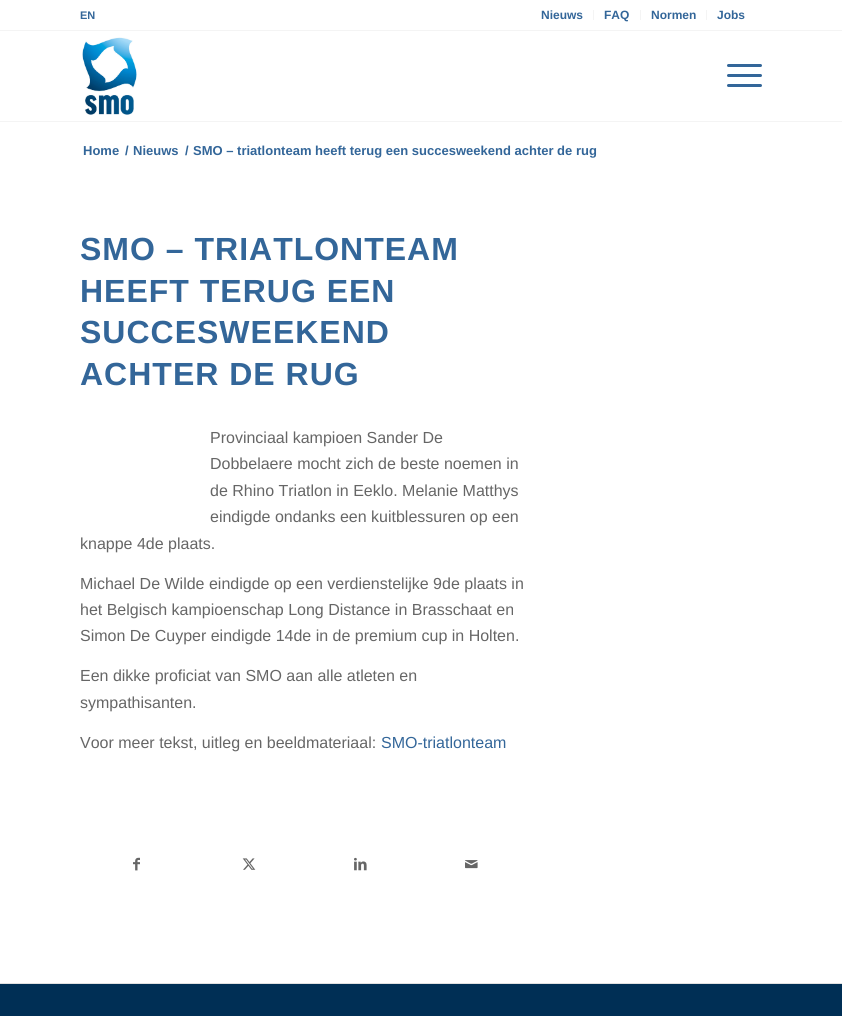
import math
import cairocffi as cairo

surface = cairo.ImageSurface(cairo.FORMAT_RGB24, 842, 1016)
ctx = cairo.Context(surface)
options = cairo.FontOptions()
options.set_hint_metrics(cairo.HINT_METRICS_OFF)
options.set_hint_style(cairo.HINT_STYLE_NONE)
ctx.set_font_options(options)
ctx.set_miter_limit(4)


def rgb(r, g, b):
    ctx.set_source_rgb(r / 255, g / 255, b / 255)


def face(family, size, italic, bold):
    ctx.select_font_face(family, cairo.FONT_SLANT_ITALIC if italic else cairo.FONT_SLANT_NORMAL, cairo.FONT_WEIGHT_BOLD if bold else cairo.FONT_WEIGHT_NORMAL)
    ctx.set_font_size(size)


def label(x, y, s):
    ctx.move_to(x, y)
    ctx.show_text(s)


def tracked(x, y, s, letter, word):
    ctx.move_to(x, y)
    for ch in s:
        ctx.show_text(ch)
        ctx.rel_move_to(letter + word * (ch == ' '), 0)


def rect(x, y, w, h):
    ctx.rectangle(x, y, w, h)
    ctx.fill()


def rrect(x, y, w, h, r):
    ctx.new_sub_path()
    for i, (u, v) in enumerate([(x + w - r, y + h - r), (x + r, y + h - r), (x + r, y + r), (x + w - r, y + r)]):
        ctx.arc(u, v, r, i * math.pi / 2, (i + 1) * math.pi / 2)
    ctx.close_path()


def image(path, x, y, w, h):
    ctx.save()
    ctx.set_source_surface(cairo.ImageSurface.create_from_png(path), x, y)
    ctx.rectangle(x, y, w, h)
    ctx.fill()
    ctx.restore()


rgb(255, 255, 255)
ctx.paint()
rgb(244, 244, 244)
rect(0, 30, 842, 1)
face('Liberation Sans', 11, 0, 1)
rgb(51, 102, 153)
label(80, 19, 'EN')
rgb(244, 244, 244)
rect(593, 10, 1, 10)
face('Liberation Sans', 12, 0, 1)
rgb(51, 102, 153)
label(541, 19, 'Nieuws')
rgb(244, 244, 244)
rect(640, 10, 1, 10)
rgb(51, 102, 153)
label(604, 19, 'FAQ')
rgb(244, 244, 244)
rect(706, 10, 1, 10)
rgb(51, 102, 153)
label(651, 19, 'Normen')
label(717, 19, 'Jobs')
rgb(244, 244, 244)
rect(0, 121, 842, 1)
image('image0.png', 82, 37, 55, 78)
rgb(51, 102, 153)
rrect(727, 74, 35, 3, 1.5)
ctx.fill()
rrect(727, 64, 35, 3, 1.5)
ctx.fill()
rrect(727, 84, 35, 3, 1.5)
ctx.fill()
face('Liberation Sans', 13, 0, 1)
label(83, 155, 'Home')
label(125, 155, '/')
label(133, 155, 'Nieuws')
label(185, 155, '/')
label(193, 155, 'SMO – triatlonteam heeft terug een succesweekend achter de rug')
face('Liberation Sans', 32, 0, 1)
tracked(80, 260, 'SMO – TRIATLONTEAM', 1, 0)
tracked(80, 302, 'HEEFT TERUG EEN', 1, 0)
tracked(80, 343, 'SUCCESWEEKEND', 1, 0)
tracked(80, 385, 'ACHTER DE RUG', 1, 0)
face('Liberation Sans', 16, 0, 0)
rgb(102, 102, 102)
label(210, 443, 'Provinciaal kampioen Sander De')
label(210, 469, 'Dobbelaere mocht zich de beste noemen in')
label(210, 496, 'de Rhino Triatlon in Eeklo. Melanie Matthys')
label(210, 522, 'eindigde ondanks een kuitblessuren op een')
label(80, 549, 'knappe 4de plaats.')
label(80, 589, 'Michael De Wilde eindigde op een verdienstelijke 9de plaats in')
label(80, 615, 'het Belgisch kampioenschap Long Distance in Brasschaat en')
label(80, 641, 'Simon De Cuyper eindigde 14de in de premium cup in Holten.')
label(80, 681, 'Een dikke proficiat van SMO aan alle atleten en')
label(80, 708, 'sympathisanten.')
label(80, 748, 'Voor meer tekst, uitleg en beeldmateriaal:')
rgb(51, 102, 153)
label(381, 748, 'SMO-triatlonteam')
image('image1.png', 133, 857, 7, 14)
image('image2.png', 242, 858, 14, 12)
image('image3.png', 354, 857, 13, 14)
image('image4.png', 465, 860, 13, 9)
rgb(0, 47, 85)
rect(0, 984, 842, 32)
rgb(225, 225, 225)
rect(0, 983, 842, 1)
surface.write_to_png('render.png')
